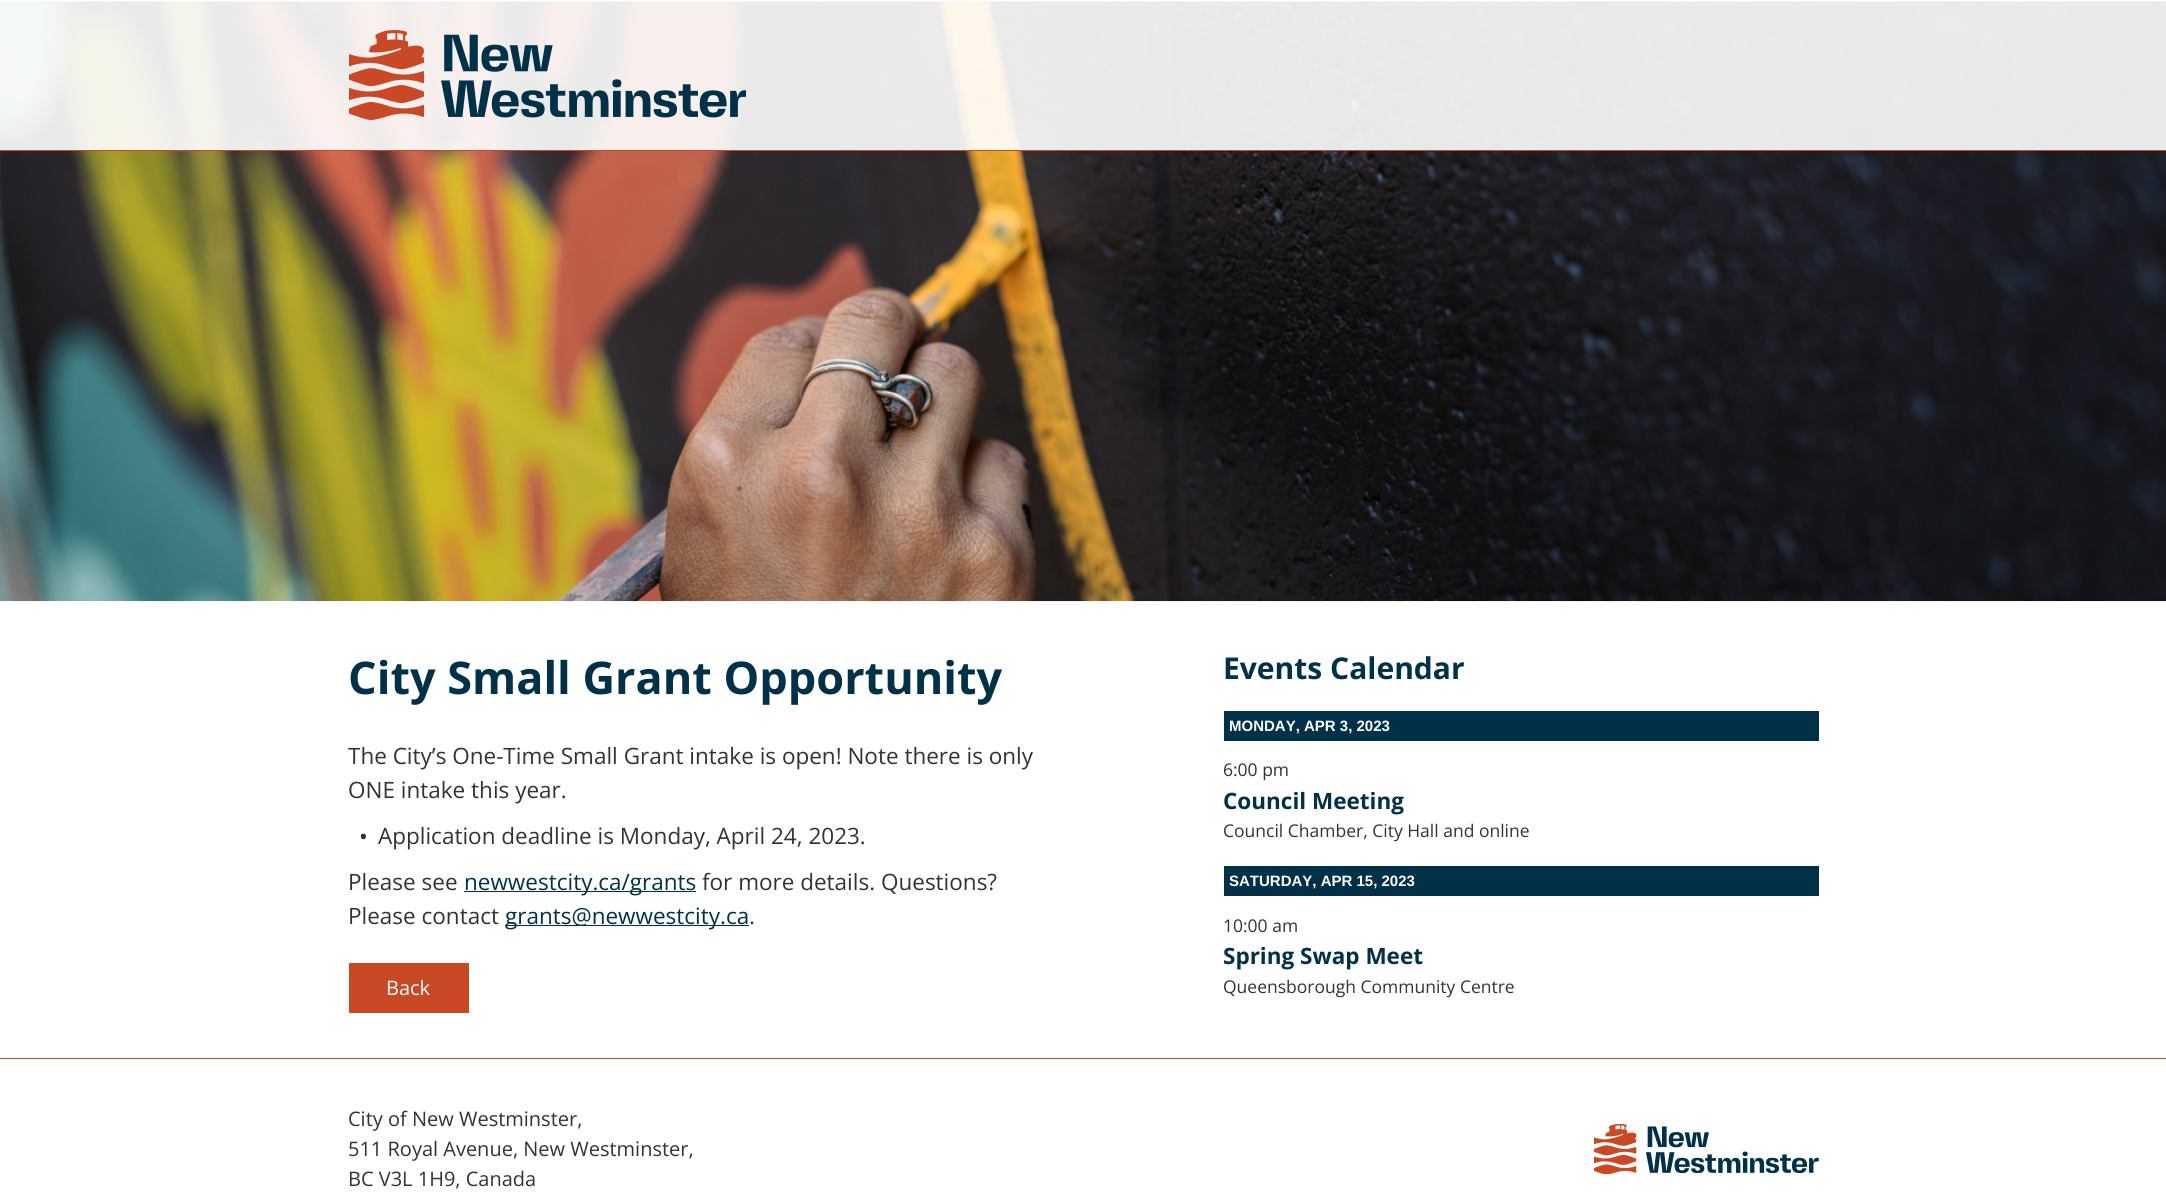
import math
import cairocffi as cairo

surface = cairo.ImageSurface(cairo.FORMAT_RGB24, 2166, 1199)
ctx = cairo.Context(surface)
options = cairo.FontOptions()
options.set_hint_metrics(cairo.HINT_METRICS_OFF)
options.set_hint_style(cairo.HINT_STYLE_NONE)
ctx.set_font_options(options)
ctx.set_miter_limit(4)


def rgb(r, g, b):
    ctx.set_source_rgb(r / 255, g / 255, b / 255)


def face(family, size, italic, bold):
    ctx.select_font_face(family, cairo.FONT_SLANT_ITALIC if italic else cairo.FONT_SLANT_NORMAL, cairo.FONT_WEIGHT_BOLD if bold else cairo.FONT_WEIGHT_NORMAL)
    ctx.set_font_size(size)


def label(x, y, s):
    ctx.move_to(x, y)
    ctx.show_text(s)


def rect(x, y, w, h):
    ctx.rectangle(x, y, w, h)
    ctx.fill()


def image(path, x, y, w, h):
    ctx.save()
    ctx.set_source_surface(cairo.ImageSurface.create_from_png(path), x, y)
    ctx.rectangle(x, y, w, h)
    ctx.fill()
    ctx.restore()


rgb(255, 255, 255)
ctx.paint()
image('image1.png', 0, 1, 2166, 601)
ctx.set_source_rgba(1, 1, 1, 0.9)
rect(0, 1, 2166, 149)
rgb(201, 73, 39)
rect(0, 150, 2166, 1)
image('image0.png', 349, 30, 397, 90)
face('Open Sans', 45, 0, 1)
rgb(0, 49, 73)
label(348, 694, 'City Small Grant Opportunity')
face('Open Sans', 22.5, 0, 0)
rgb(51, 51, 51)
label(348, 764, 'The City’s One-Time Small Grant intake is open! Note there is only')
label(348, 798, 'ONE intake this year.')
face('Open Sans', 18, 0, 1)
label(360, 843, '•')
face('Open Sans', 22.5, 0, 0)
label(378, 844, 'Application deadline is Monday, April 24, 2023.')
label(348, 890, 'Please see')
rgb(0, 49, 73)
rect(464, 891, 232, 1)
label(464, 890, 'newwestcity.ca/grants')
rgb(51, 51, 51)
label(702, 890, 'for more details. Questions?')
label(348, 924, 'Please contact')
rgb(0, 49, 73)
rect(505, 925, 244, 1)
label(505, 924, 'grants@newwestcity.ca')
rgb(51, 51, 51)
label(749, 924, '.')
face('Open Sans', 30, 0, 1)
rgb(0, 49, 73)
label(1223, 679, 'Events Calendar')
rect(1224, 711, 595, 30)
face('Liberation Sans', 15, 0, 1)
rgb(255, 255, 255)
label(1229, 731, 'MONDAY, APR 3, 2023')
face('Open Sans', 17.5, 0, 0)
rgb(51, 51, 51)
label(1223, 776, '6:00 pm')
face('Open Sans', 22.5, 0, 1)
rgb(0, 49, 73)
label(1223, 809, 'Council Meeting')
face('Open Sans', 17.5, 0, 0)
rgb(51, 51, 51)
label(1223, 837, 'Council Chamber, City Hall and online')
rgb(0, 49, 73)
rect(1224, 866, 595, 30)
face('Liberation Sans', 15, 0, 1)
rgb(255, 255, 255)
label(1229, 886, 'SATURDAY, APR 15, 2023')
face('Open Sans', 17.5, 0, 0)
rgb(51, 51, 51)
label(1223, 932, '10:00 am')
face('Open Sans', 22.5, 0, 1)
rgb(0, 49, 73)
label(1223, 964, 'Spring Swap Meet')
face('Open Sans', 17.5, 0, 0)
rgb(51, 51, 51)
label(1223, 993, 'Queensborough Community Centre')
rgb(201, 73, 39)
rect(349, 963, 120, 50)
face('Open Sans', 20, 0, 0)
rgb(255, 255, 255)
label(386, 995, 'Back')
rgb(201, 73, 39)
rect(0, 1058, 2166, 1)
rgb(51, 51, 51)
label(348, 1126, 'City of New Westminster,')
label(348, 1156, '511 Royal Avenue, New Westminster,')
label(348, 1186, 'BC V3L 1H9, Canada')
image('image2.png', 1594, 1124, 225, 50)
surface.write_to_png('render.png')
